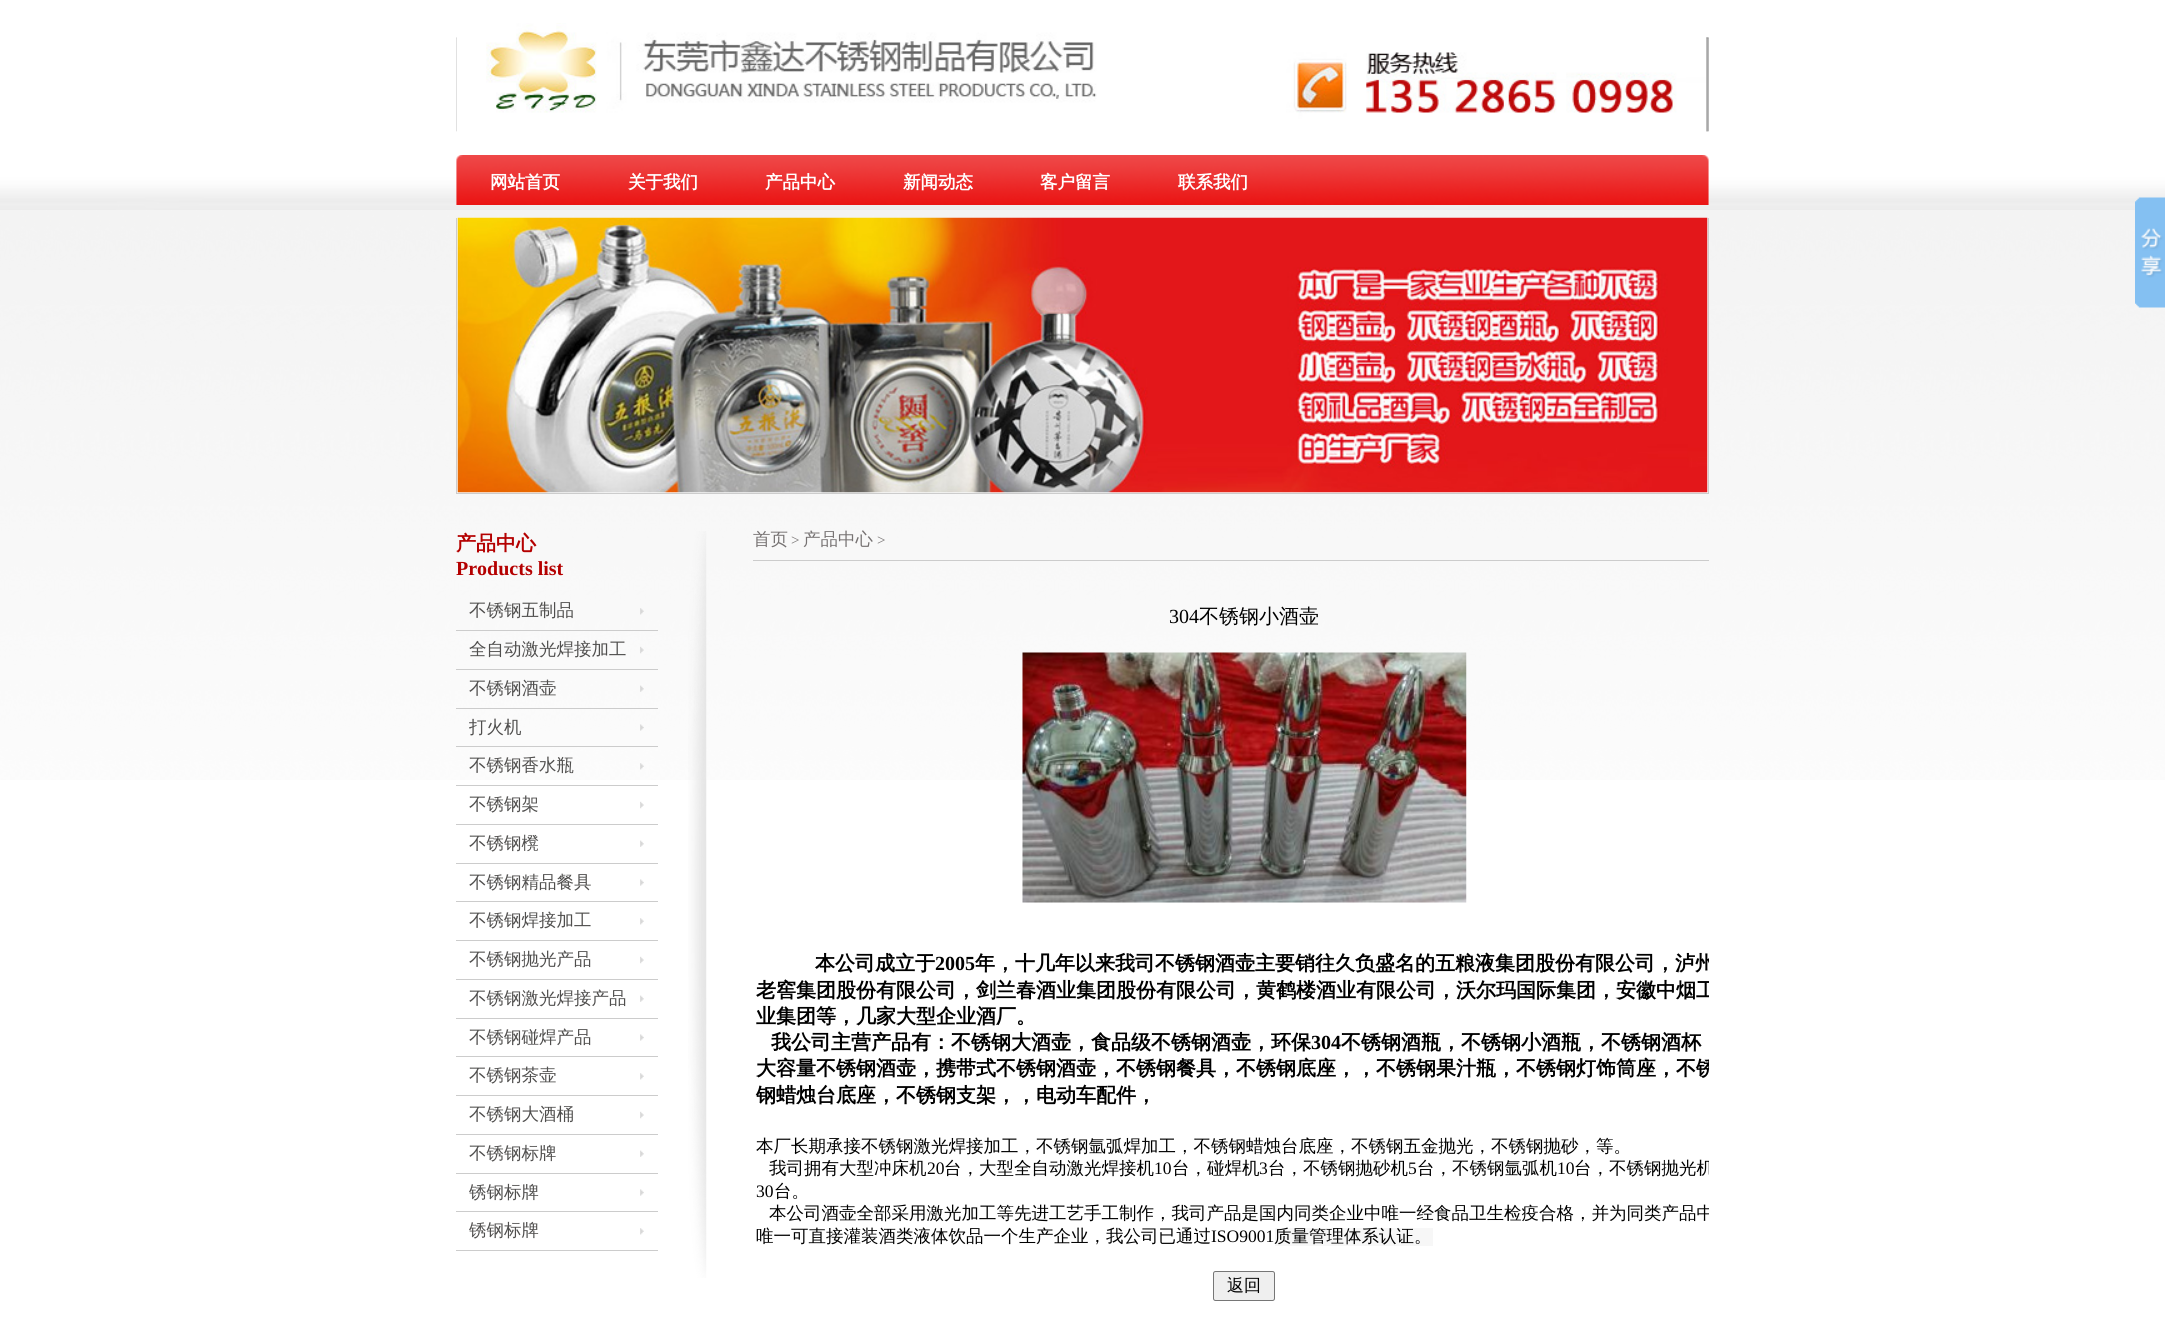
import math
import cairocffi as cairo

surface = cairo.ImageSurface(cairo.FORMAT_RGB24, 2165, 1322)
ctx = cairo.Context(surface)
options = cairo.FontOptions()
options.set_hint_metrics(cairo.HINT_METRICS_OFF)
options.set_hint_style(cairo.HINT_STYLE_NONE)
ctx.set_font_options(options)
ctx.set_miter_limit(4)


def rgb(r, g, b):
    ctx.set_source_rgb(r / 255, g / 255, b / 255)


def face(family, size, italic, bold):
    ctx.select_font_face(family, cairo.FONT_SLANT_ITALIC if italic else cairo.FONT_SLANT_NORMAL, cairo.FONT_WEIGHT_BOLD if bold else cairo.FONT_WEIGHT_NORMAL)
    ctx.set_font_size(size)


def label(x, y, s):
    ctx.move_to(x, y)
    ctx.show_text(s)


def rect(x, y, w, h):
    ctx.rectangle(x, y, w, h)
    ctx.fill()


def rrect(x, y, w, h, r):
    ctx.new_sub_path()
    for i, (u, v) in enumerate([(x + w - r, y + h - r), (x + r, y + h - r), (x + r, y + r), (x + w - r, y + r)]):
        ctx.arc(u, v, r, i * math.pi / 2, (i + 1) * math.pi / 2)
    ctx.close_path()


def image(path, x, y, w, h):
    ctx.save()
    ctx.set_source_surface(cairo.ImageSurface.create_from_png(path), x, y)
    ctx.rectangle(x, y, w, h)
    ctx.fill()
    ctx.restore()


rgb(255, 255, 255)
ctx.paint()
image('image0.png', 0, 210, 2165, 570)
image('image1.png', 0, 0, 2165, 210)
image('image3.png', 456, 37, 1253, 95)
image('image4.png', 456, 37, 1253, 95)
image('image2.png', 456, 23, 1251, 109)
image('image5.png', 456, 155, 1253, 50)
face('WenQuanYi Zen Hei', 17.5, 0, 1)
rgb(255, 255, 255)
label(490, 188, '网站首页')
label(628, 188, '关于我们')
label(765, 188, '产品中心')
label(903, 188, '新闻动态')
label(1040, 188, '客户留言')
label(1178, 188, '联系我们')
rgb(204, 204, 204)
rect(1708, 218, 1, 276)
rect(456, 493, 1253, 1)
rect(456, 218, 1, 276)
image('image6.png', 457, 217, 1251, 276)
image('image7.png', 688, 531, 19, 747)
face('WenQuanYi Zen Hei', 20, 0, 1)
rgb(180, 0, 0)
label(456, 550, '产品中心')
face('Liberation Serif', 20, 0, 1)
label(456, 575, 'Products list')
image('image8.png', 640, 608, 4, 7)
rgb(204, 204, 204)
rect(456, 630, 202, 1)
face('WenQuanYi Zen Hei Medium', 17.5, 0, 0)
rgb(80, 79, 78)
label(469, 616, '不锈钢五制品')
image('image9.png', 640, 646, 4, 8)
rgb(204, 204, 204)
rect(456, 669, 202, 1)
rgb(80, 79, 78)
label(469, 655, '全自动激光焊接加工')
image('image10.png', 640, 685, 4, 7)
rgb(204, 204, 204)
rect(456, 708, 202, 1)
rgb(80, 79, 78)
label(469, 694, '不锈钢酒壶')
image('image11.png', 640, 724, 4, 7)
rgb(204, 204, 204)
rect(456, 746, 202, 1)
rgb(80, 79, 78)
label(469, 733, '打火机')
image('image12.png', 640, 763, 4, 7)
rgb(204, 204, 204)
rect(456, 785, 202, 1)
rgb(80, 79, 78)
label(469, 771, '不锈钢香水瓶')
image('image13.png', 640, 801, 4, 8)
rgb(204, 204, 204)
rect(456, 824, 202, 1)
rgb(80, 79, 78)
label(469, 810, '不锈钢架')
image('image14.png', 640, 840, 4, 7)
rgb(204, 204, 204)
rect(456, 863, 202, 1)
rgb(80, 79, 78)
label(469, 849, '不锈钢櫈')
image('image15.png', 640, 879, 4, 7)
rgb(204, 204, 204)
rect(456, 901, 202, 1)
rgb(80, 79, 78)
label(469, 888, '不锈钢精品餐具')
image('image16.png', 640, 918, 4, 7)
rgb(204, 204, 204)
rect(456, 940, 202, 1)
rgb(80, 79, 78)
label(469, 926, '不锈钢焊接加工')
image('image13.png', 640, 956, 4, 8)
rgb(204, 204, 204)
rect(456, 979, 202, 1)
rgb(80, 79, 78)
label(469, 965, '不锈钢抛光产品')
image('image14.png', 640, 995, 4, 7)
rgb(204, 204, 204)
rect(456, 1018, 202, 1)
rgb(80, 79, 78)
label(469, 1004, '不锈钢激光焊接产品')
image('image15.png', 640, 1034, 4, 7)
rgb(204, 204, 204)
rect(456, 1056, 202, 1)
rgb(80, 79, 78)
label(469, 1043, '不锈钢碰焊产品')
image('image16.png', 640, 1073, 4, 7)
rgb(204, 204, 204)
rect(456, 1095, 202, 1)
rgb(80, 79, 78)
label(469, 1081, '不锈钢茶壶')
image('image13.png', 640, 1111, 4, 8)
rgb(204, 204, 204)
rect(456, 1134, 202, 1)
rgb(80, 79, 78)
label(469, 1120, '不锈钢大酒桶')
image('image14.png', 640, 1150, 4, 7)
rgb(204, 204, 204)
rect(456, 1173, 202, 1)
rgb(80, 79, 78)
label(469, 1159, '不锈钢标牌')
image('image17.png', 640, 1189, 4, 7)
rgb(204, 204, 204)
rect(456, 1211, 202, 1)
rgb(80, 79, 78)
label(469, 1198, '锈钢标牌')
image('image16.png', 640, 1228, 4, 7)
rgb(204, 204, 204)
rect(456, 1250, 202, 1)
rgb(80, 79, 78)
label(469, 1236, '锈钢标牌')
rgb(204, 204, 204)
rect(753, 560, 956, 1)
rgb(118, 114, 114)
label(753, 545, '首页')
face('Liberation Serif', 15, 0, 0)
label(791, 545, '>')
face('WenQuanYi Zen Hei Medium', 17.5, 0, 0)
label(803, 545, '产品中心')
face('Liberation Serif', 15, 0, 0)
label(877, 545, '>')
face('Liberation Serif', 20, 0, 0)
rgb(0, 0, 0)
label(1169, 623, '304')
face('WenQuanYi Zen Hei Medium', 20, 0, 0)
label(1199, 623, '不锈钢小酒壶')
image('image18.png', 1022, 652, 445, 251)
face('WenQuanYi Zen Hei', 20, 0, 1)
label(815, 970, '本公司成立于')
face('Liberation Serif', 20, 0, 1)
label(935, 970, '2005')
ctx.save()
ctx.rectangle(456, 0, 1253, 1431)
ctx.clip()
face('WenQuanYi Zen Hei', 20, 0, 1)
label(975, 970, '年，十几年以来我司不锈钢酒壶主要销往久负盛名的五粮液集团股份有限公司，泸州')
label(756, 997, '老窖集团股份有限公司，剑兰春酒业集团股份有限公司，黄鹤楼酒业有限公司，沃尔玛国际集团，安徽中烟工')
ctx.restore()
face('WenQuanYi Zen Hei', 20, 0, 1)
label(756, 1023, '业集团等，几家大型企业酒厂。')
label(771, 1049, '我公司主营产品有：不锈钢大酒壶，食品级不锈钢酒壶，环保')
face('Liberation Serif', 20, 0, 1)
label(1311, 1049, '304')
face('WenQuanYi Zen Hei', 20, 0, 1)
label(1341, 1049, '不锈钢酒瓶，不锈钢小酒瓶，不锈钢酒杯')
ctx.save()
ctx.rectangle(456, 0, 1253, 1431)
ctx.clip()
label(756, 1075, '大容量不锈钢酒壶，携带式不锈钢酒壶，不锈钢餐具，不锈钢底座，，不锈钢果汁瓶，不锈钢灯饰筒座，不锈')
ctx.restore()
label(756, 1102, '钢蜡烛台底座，不锈钢支架，，电动车配件，')
face('WenQuanYi Zen Hei Medium', 17.5, 0, 0)
label(756, 1152, '本厂长期承接不锈钢激光焊接加工，不锈钢氩弧焊加工，不锈钢蜡烛台底座，不锈钢五金抛光，不锈钢抛砂，等。')
label(769, 1174, '我司拥有大型冲床机')
face('Liberation Serif', 17.5, 0, 0)
label(927, 1174, '20')
face('WenQuanYi Zen Hei Medium', 17.5, 0, 0)
label(944, 1174, '台，大型全自动激光焊接机')
face('Liberation Serif', 17.5, 0, 0)
label(1154, 1174, '10')
face('WenQuanYi Zen Hei Medium', 17.5, 0, 0)
label(1172, 1174, '台，碰焊机')
face('Liberation Serif', 17.5, 0, 0)
label(1259, 1174, '3')
face('WenQuanYi Zen Hei Medium', 17.5, 0, 0)
label(1268, 1174, '台，不锈钢抛砂机')
face('Liberation Serif', 17.5, 0, 0)
label(1408, 1174, '5')
face('WenQuanYi Zen Hei Medium', 17.5, 0, 0)
label(1417, 1174, '台，不锈钢氩弧机')
face('Liberation Serif', 17.5, 0, 0)
label(1557, 1174, '10')
ctx.save()
ctx.rectangle(456, 0, 1253, 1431)
ctx.clip()
face('WenQuanYi Zen Hei Medium', 17.5, 0, 0)
label(1574, 1174, '台，不锈钢抛光机')
ctx.restore()
label(756, 1197, '30')
face('WenQuanYi Zen Hei Medium', 17.5, 0, 0)
label(774, 1197, '台。')
ctx.save()
ctx.rectangle(456, 0, 1253, 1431)
ctx.clip()
label(769, 1219, '本公司酒壶全部采用激光加工等先进工艺手工制作，我司产品是国内同类企业中唯一经食品卫生检疫合格，并为同类产品中')
ctx.restore()
label(756, 1242, '唯一可直接灌装酒类液体饮品一个生产企业，我公司已通过')
face('Liberation Serif', 17.5, 0, 0)
label(1211, 1242, 'ISO9001')
rgb(247, 247, 247)
rect(1275, 1228, 158, 18)
face('WenQuanYi Zen Hei Medium', 17.5, 0, 0)
rgb(0, 0, 0)
label(1274, 1242, '质量管理体系认证。')
rgb(239, 239, 239)
rrect(1213.5, 1271.5, 61, 29, 2)
ctx.fill_preserve()
rgb(118, 118, 118)
ctx.set_line_width(1)
ctx.stroke()
face('WenQuanYi Zen Hei Medium', 17, 0, 0)
rgb(0, 0, 0)
label(1227, 1291, '返回')
image('image19.png', 2135, 197, 30, 111)
surface.write_to_png('render.png')
